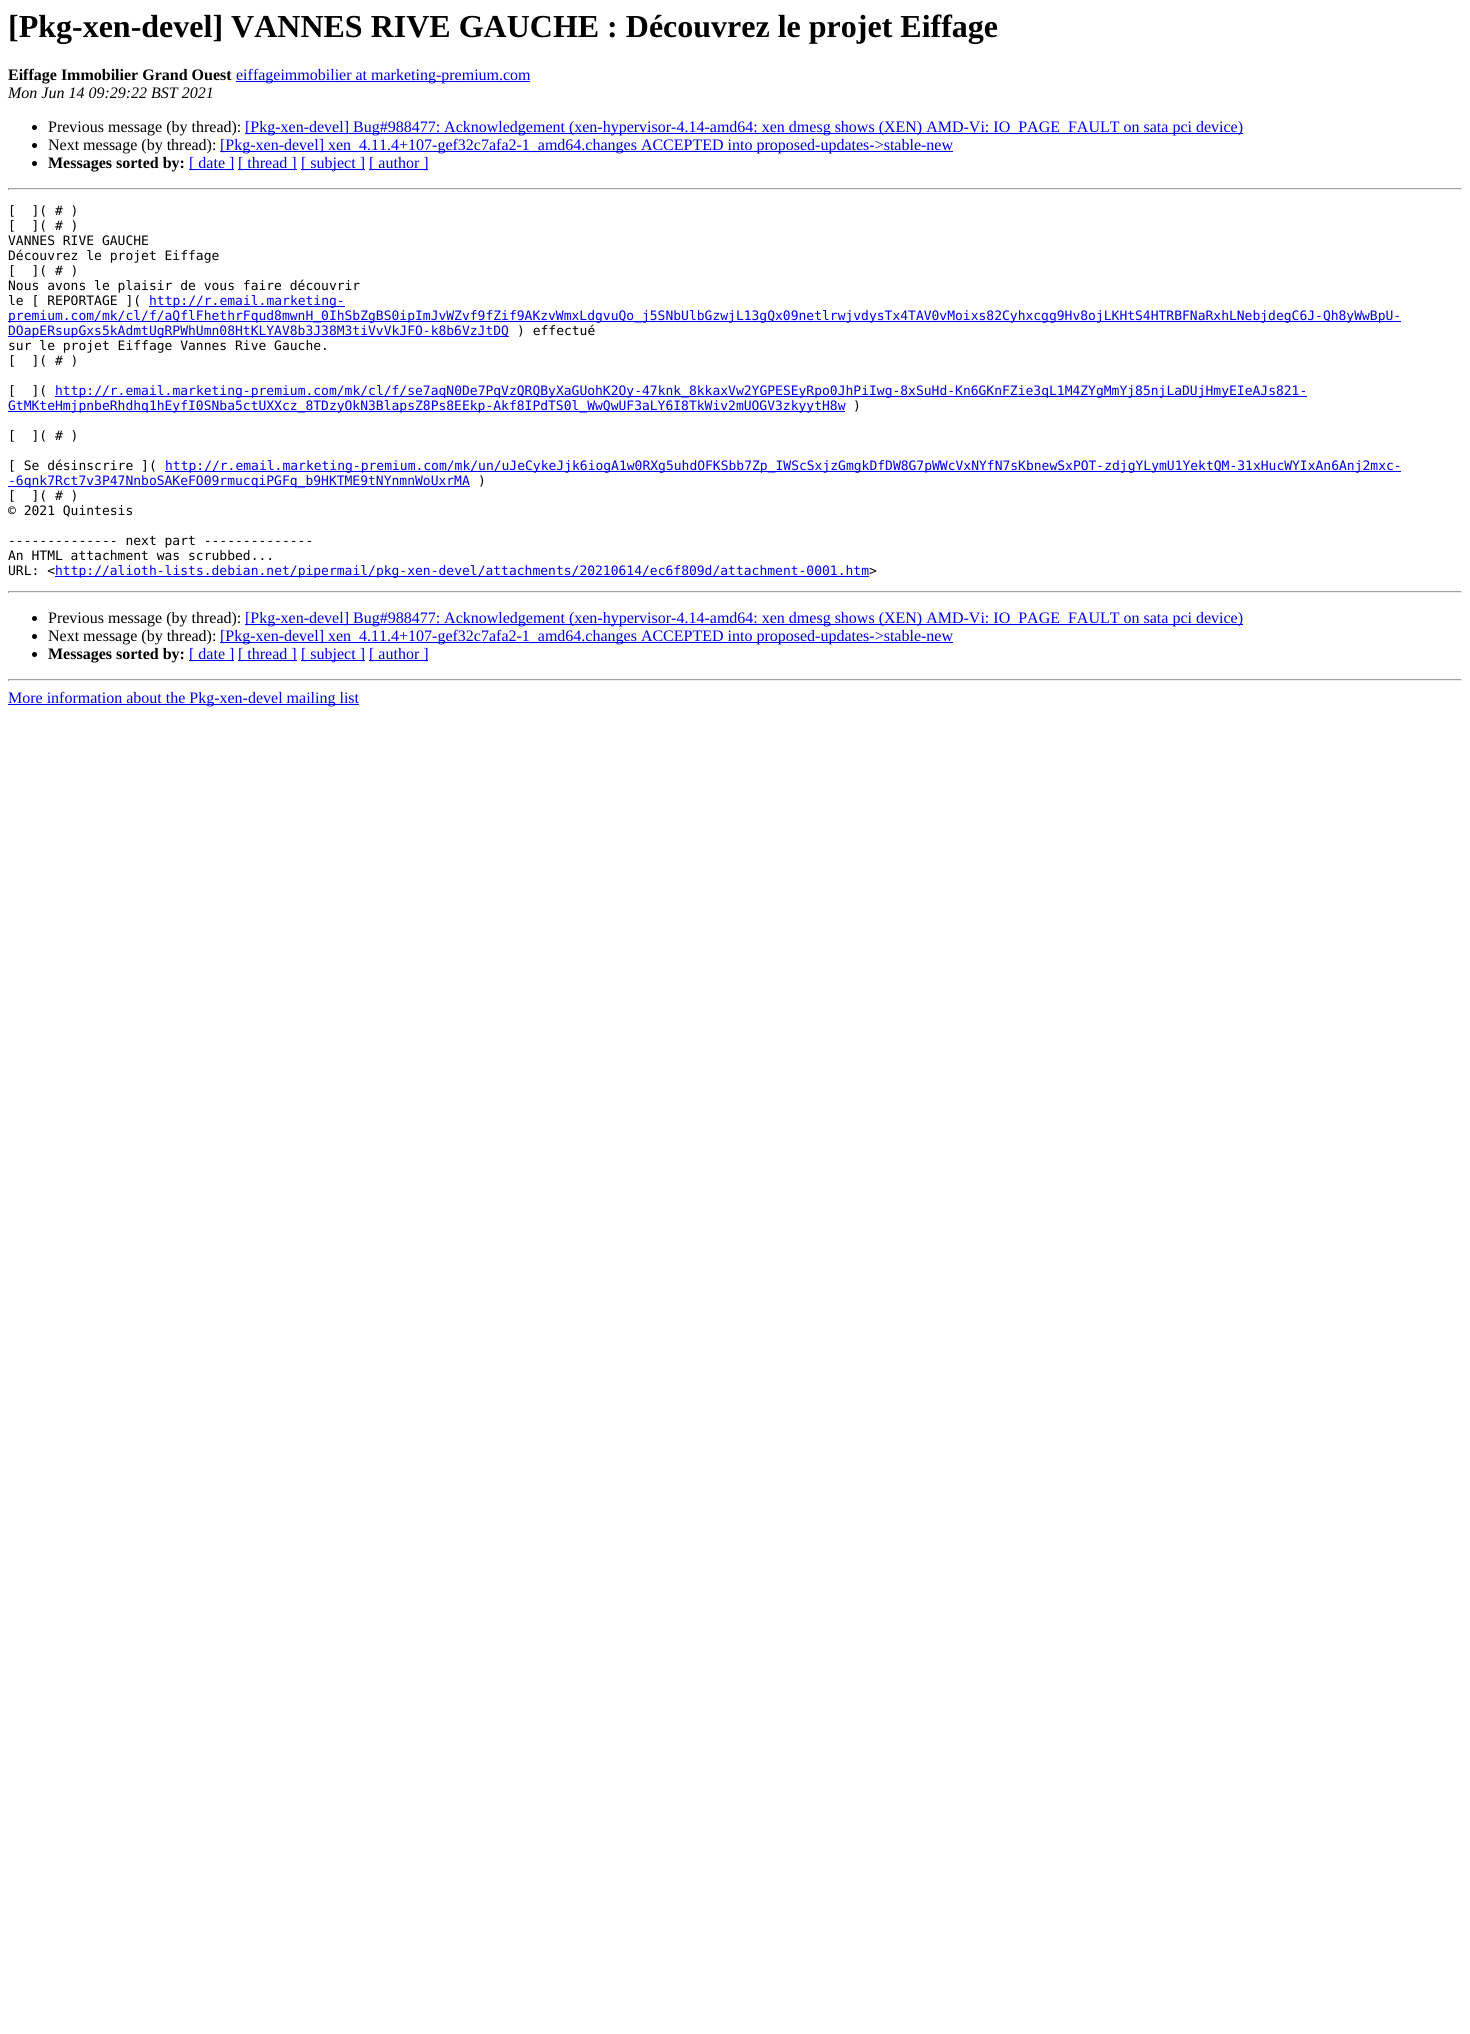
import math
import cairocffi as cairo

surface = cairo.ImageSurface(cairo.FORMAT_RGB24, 1470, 2034)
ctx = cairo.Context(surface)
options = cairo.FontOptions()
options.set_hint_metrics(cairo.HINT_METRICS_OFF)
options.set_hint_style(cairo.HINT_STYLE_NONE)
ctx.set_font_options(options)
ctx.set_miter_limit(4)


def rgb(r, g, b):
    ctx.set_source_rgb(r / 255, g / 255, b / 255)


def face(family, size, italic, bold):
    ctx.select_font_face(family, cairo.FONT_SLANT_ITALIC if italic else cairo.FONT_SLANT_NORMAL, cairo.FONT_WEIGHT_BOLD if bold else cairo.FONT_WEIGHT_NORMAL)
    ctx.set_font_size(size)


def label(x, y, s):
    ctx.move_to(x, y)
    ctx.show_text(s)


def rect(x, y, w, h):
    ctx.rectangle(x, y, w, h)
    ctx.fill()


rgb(255, 255, 255)
ctx.paint()
face('Liberation Serif', 32, 0, 1)
rgb(0, 0, 0)
label(8, 37, '[Pkg-xen-devel] VANNES RIVE GAUCHE : Découvrez le projet Eiffage')
face('Liberation Serif', 16, 0, 1)
label(8, 80, 'Eiffage Immobilier Grand Ouest')
rgb(0, 0, 238)
rect(236, 81, 294, 1)
face('Liberation Serif', 16, 0, 0)
label(236, 80, 'eiffageimmobilier at marketing-premium.com')
face('Liberation Serif', 16, 1, 0)
rgb(0, 0, 0)
label(8, 98, 'Mon Jun 14 09:29:22 BST 2021')
ctx.new_path()
ctx.arc(34.5, 127.5, 2.5, 0, 2 * math.pi)
ctx.fill()
face('Liberation Serif', 16, 0, 0)
label(48, 132, 'Previous message (by thread):')
rgb(0, 0, 238)
rect(245, 133, 998, 1)
label(245, 132, '[Pkg-xen-devel] Bug#988477: Acknowledgement (xen-hypervisor-4.14-amd64: xen dmesg shows (XEN) AMD-Vi: IO_PAGE_FAULT on sata pci device)')
rgb(0, 0, 0)
ctx.new_path()
ctx.arc(34.5, 145.5, 2.5, 0, 2 * math.pi)
ctx.fill()
label(48, 150, 'Next message (by thread):')
rgb(0, 0, 238)
rect(220, 151, 733, 1)
label(220, 150, '[Pkg-xen-devel] xen_4.11.4+107-gef32c7afa2-1_amd64.changes ACCEPTED into proposed-updates->stable-new')
rgb(0, 0, 0)
ctx.new_path()
ctx.arc(34.5, 163.5, 2.5, 0, 2 * math.pi)
ctx.fill()
face('Liberation Serif', 16, 0, 1)
label(48, 168, 'Messages sorted by:')
rgb(0, 0, 238)
rect(189, 169, 45, 1)
face('Liberation Serif', 16, 0, 0)
label(189, 168, '[ date ]')
rect(238, 169, 59, 1)
label(238, 168, '[ thread ]')
rect(301, 169, 64, 1)
label(301, 168, '[ subject ]')
rect(369, 169, 59, 1)
label(369, 168, '[ author ]')
rgb(159, 159, 159)
rect(8, 188, 1454, 1)
rgb(238, 238, 238)
rect(1461, 188, 1, 2)
rect(8, 189, 1454, 1)
rgb(159, 159, 159)
rect(8, 188, 1, 2)
face('DejaVu Sans Mono', 13, 0, 0)
rgb(0, 0, 0)
label(8, 215, '[  ]( # )')
label(8, 230, '[  ]( # )')
label(8, 245, 'VANNES RIVE GAUCHE')
label(8, 260, 'Découvrez le projet Eiffage')
label(8, 275, '[  ]( # )')
label(8, 290, 'Nous avons le plaisir de vous faire découvrir')
label(8, 305, 'le [ REPORTAGE ](')
rgb(0, 0, 238)
rect(149, 306, 196, 1)
label(149, 305, 'http://r.email.marketing-')
rect(8, 321, 1393, 1)
label(8, 320, 'premium.com/mk/cl/f/aQflFhethrFqud8mwnH_0IhSbZgBS0ipImJvWZvf9fZif9AKzvWmxLdgvuQo_j5SNbUlbGzwjL13gQx09netlrwjvdysTx4TAV0vMoixs82Cyhxcgg9Hv8ojLKHtS4HTRBFNaRxhLNebjdegC6J-Qh8yWwBpU-')
rect(8, 336, 501, 1)
label(8, 335, 'DOapERsupGxs5kAdmtUgRPWhUmn08HtKLYAV8b3J38M3tiVvVkJFO-k8b6VzJtDQ')
rgb(0, 0, 0)
label(517, 335, ') effectué')
label(8, 350, 'sur le projet Eiffage Vannes Rive Gauche.')
label(8, 365, '[  ]( # )')
label(8, 395, '[  ](')
rgb(0, 0, 238)
rect(55, 396, 1252, 1)
label(55, 395, 'http://r.email.marketing-premium.com/mk/cl/f/se7aqN0De7PqVzQRQByXaGUohK2Oy-47knk_8kkaxVw2YGPESEyRpo0JhPiIwg-8xSuHd-Kn6GKnFZie3qL1M4ZYgMmYj85njLaDUjHmyEIeAJs821-')
rect(8, 411, 837, 1)
label(8, 410, 'GtMKteHmjpnbeRhdhq1hEyfI0SNba5ctUXXcz_8TDzyOkN3BlapsZ8Ps8EEkp-Akf8IPdTS0l_WwQwUF3aLY6I8TkWiv2mUOGV3zkyytH8w')
rgb(0, 0, 0)
label(853, 410, ')')
label(8, 440, '[  ]( # )')
label(8, 470, '[ Se désinscrire ](')
rgb(0, 0, 238)
rect(165, 471, 1236, 1)
label(165, 470, 'http://r.email.marketing-premium.com/mk/un/uJeCykeJjk6iogA1w0RXg5uhdOFKSbb7Zp_IWScSxjzGmgkDfDW8G7pWWcVxNYfN7sKbnewSxPOT-zdjgYLymU1YektQM-31xHucWYIxAn6Anj2mxc-')
rect(8, 486, 462, 1)
label(8, 485, '-6qnk7Rct7v3P47NnboSAKeFO09rmucqiPGFq_b9HKTME9tNYnmnWoUxrMA')
rgb(0, 0, 0)
label(478, 485, ')')
label(8, 500, '[  ]( # )')
label(8, 515, '© 2021 Quintesis')
label(8, 545, '-------------- next part --------------')
label(8, 560, 'An HTML attachment was scrubbed...')
label(8, 575, 'URL: <')
rgb(0, 0, 238)
rect(55, 576, 814, 1)
label(55, 575, 'http://alioth-lists.debian.net/pipermail/pkg-xen-devel/attachments/20210614/ec6f809d/attachment-0001.htm')
rgb(0, 0, 0)
label(869, 575, '>')
rgb(159, 159, 159)
rect(8, 591, 1454, 1)
rgb(238, 238, 238)
rect(1461, 591, 1, 2)
rect(8, 592, 1454, 1)
rgb(159, 159, 159)
rect(8, 591, 1, 2)
rgb(0, 0, 0)
ctx.new_path()
ctx.arc(34.5, 618.5, 2.5, 0, 2 * math.pi)
ctx.fill()
face('Liberation Serif', 16, 0, 0)
label(48, 623, 'Previous message (by thread):')
rgb(0, 0, 238)
rect(245, 624, 998, 1)
label(245, 623, '[Pkg-xen-devel] Bug#988477: Acknowledgement (xen-hypervisor-4.14-amd64: xen dmesg shows (XEN) AMD-Vi: IO_PAGE_FAULT on sata pci device)')
rgb(0, 0, 0)
ctx.new_path()
ctx.arc(34.5, 636.5, 2.5, 0, 2 * math.pi)
ctx.fill()
label(48, 641, 'Next message (by thread):')
rgb(0, 0, 238)
rect(220, 642, 733, 1)
label(220, 641, '[Pkg-xen-devel] xen_4.11.4+107-gef32c7afa2-1_amd64.changes ACCEPTED into proposed-updates->stable-new')
rgb(0, 0, 0)
ctx.new_path()
ctx.arc(34.5, 654.5, 2.5, 0, 2 * math.pi)
ctx.fill()
face('Liberation Serif', 16, 0, 1)
label(48, 659, 'Messages sorted by:')
rgb(0, 0, 238)
rect(189, 660, 45, 1)
face('Liberation Serif', 16, 0, 0)
label(189, 659, '[ date ]')
rect(238, 660, 59, 1)
label(238, 659, '[ thread ]')
rect(301, 660, 64, 1)
label(301, 659, '[ subject ]')
rect(369, 660, 59, 1)
label(369, 659, '[ author ]')
rgb(159, 159, 159)
rect(8, 679, 1454, 1)
rgb(238, 238, 238)
rect(1461, 679, 1, 2)
rect(8, 680, 1454, 1)
rgb(159, 159, 159)
rect(8, 679, 1, 2)
rgb(0, 0, 238)
rect(8, 704, 351, 1)
label(8, 703, 'More information about the Pkg-xen-devel mailing list')
surface.write_to_png('render.png')
